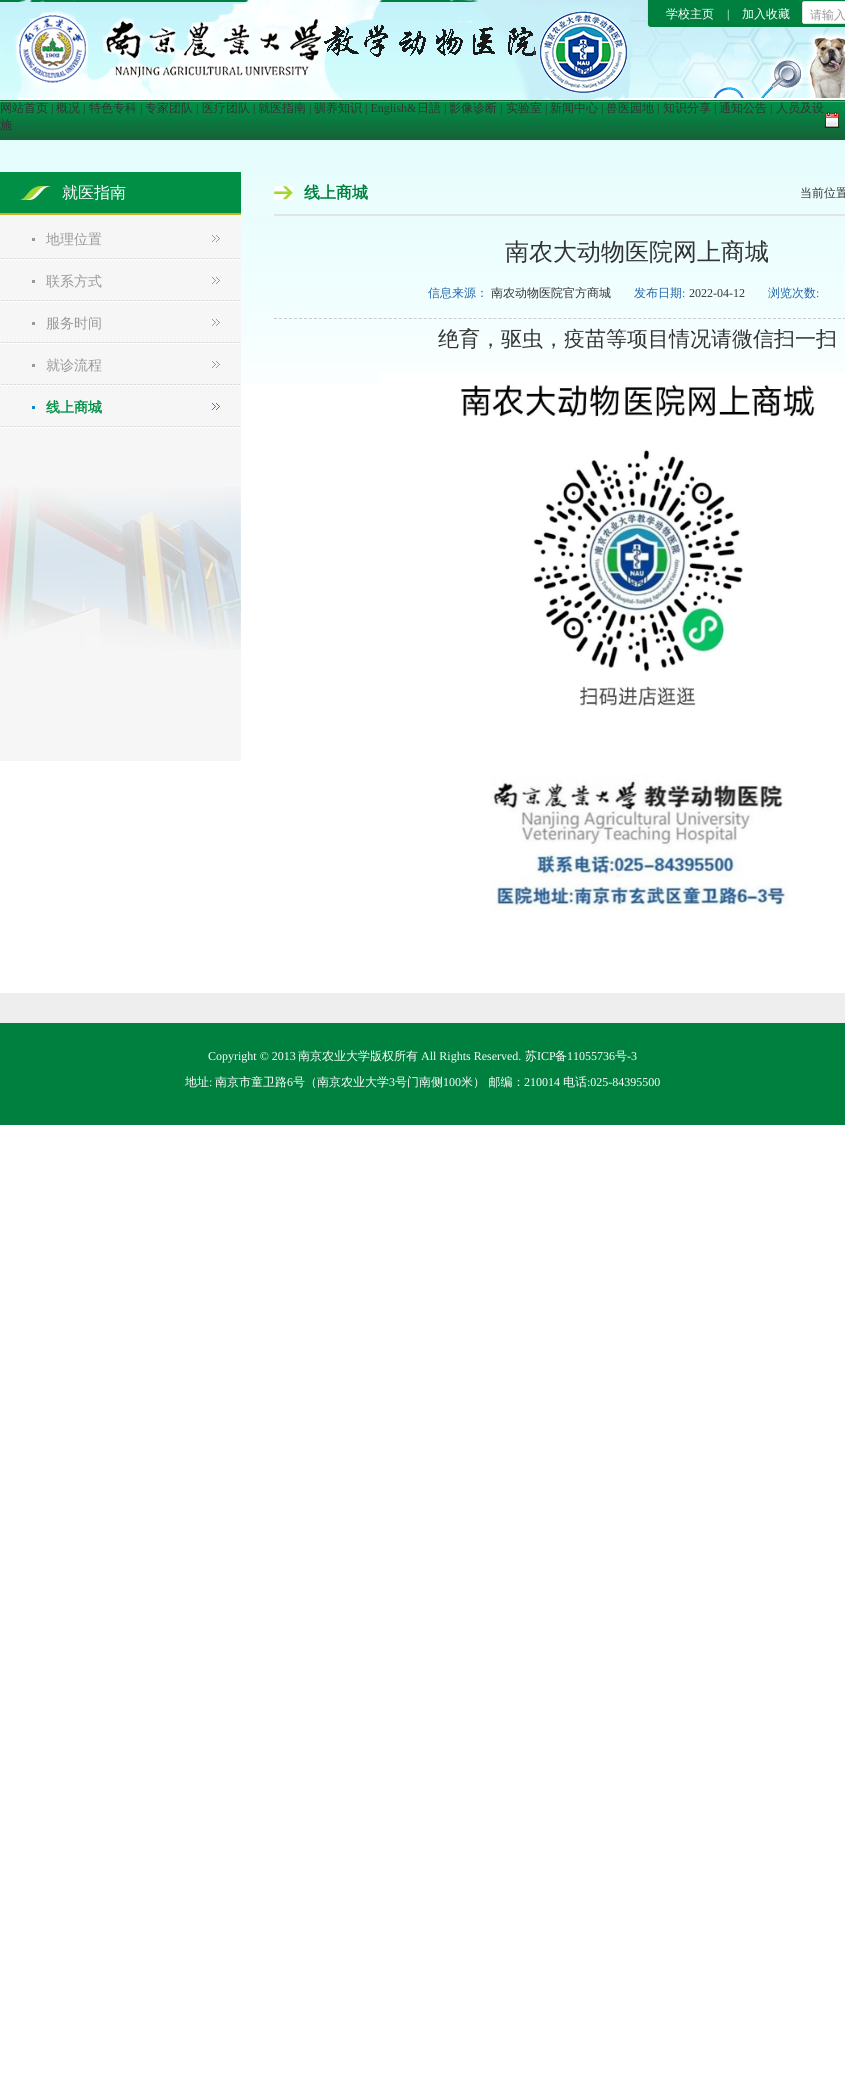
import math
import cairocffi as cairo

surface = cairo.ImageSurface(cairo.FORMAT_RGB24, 845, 2099)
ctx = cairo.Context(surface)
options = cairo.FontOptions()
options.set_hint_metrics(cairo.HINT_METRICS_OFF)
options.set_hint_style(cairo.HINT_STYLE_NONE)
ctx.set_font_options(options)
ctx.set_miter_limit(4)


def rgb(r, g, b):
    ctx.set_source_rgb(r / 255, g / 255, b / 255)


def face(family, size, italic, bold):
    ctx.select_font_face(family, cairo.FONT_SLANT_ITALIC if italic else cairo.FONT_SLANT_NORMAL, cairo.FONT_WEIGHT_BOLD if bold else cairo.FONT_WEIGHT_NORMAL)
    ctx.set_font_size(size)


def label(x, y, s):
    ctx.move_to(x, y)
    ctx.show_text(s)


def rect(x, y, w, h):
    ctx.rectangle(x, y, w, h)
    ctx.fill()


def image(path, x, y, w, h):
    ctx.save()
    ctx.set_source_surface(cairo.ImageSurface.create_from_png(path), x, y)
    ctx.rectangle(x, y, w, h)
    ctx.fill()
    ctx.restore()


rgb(255, 255, 255)
ctx.paint()
image('image0.png', 0, 0, 845, 383)
image('image1.png', 0, 0, 845, 100)
face('WenQuanYi Zen Hei Medium', 12, 0, 0)
rgb(255, 255, 255)
label(666, 18, '学校主页')
face('Liberation Serif', 12, 0, 0)
label(727, 18, '|')
face('WenQuanYi Zen Hei Medium', 12, 0, 0)
label(742, 18, '加入收藏')
rgb(153, 153, 153)
label(810, 19, '请输入')
rgb(51, 51, 51)
label(0, 112, '网站首页')
face('Liberation Serif', 12, 0, 0)
label(51, 112, '|')
face('WenQuanYi Zen Hei Medium', 12, 0, 0)
label(56, 112, '概况')
face('Liberation Serif', 12, 0, 0)
label(83, 112, '|')
face('WenQuanYi Zen Hei Medium', 12, 0, 0)
label(89, 112, '特色专科')
face('Liberation Serif', 12, 0, 0)
label(140, 112, '|')
face('WenQuanYi Zen Hei Medium', 12, 0, 0)
label(145, 112, '专家团队')
face('Liberation Serif', 12, 0, 0)
label(196, 112, '|')
face('WenQuanYi Zen Hei Medium', 12, 0, 0)
label(202, 112, '医疗团队')
face('Liberation Serif', 12, 0, 0)
label(253, 112, '|')
face('WenQuanYi Zen Hei Medium', 12, 0, 0)
label(258, 112, '就医指南')
face('Liberation Serif', 12, 0, 0)
label(309, 112, '|')
face('WenQuanYi Zen Hei Medium', 12, 0, 0)
label(314, 112, '驯养知识')
face('Liberation Serif', 12, 0, 0)
label(365, 112, '| English&')
face('WenQuanYi Zen Hei Medium', 12, 0, 0)
label(417, 112, '日語')
face('Liberation Serif', 12, 0, 0)
label(444, 112, '|')
face('WenQuanYi Zen Hei Medium', 12, 0, 0)
label(449, 112, '影像诊断')
face('Liberation Serif', 12, 0, 0)
label(500, 112, '|')
face('WenQuanYi Zen Hei Medium', 12, 0, 0)
label(506, 112, '实验室')
face('Liberation Serif', 12, 0, 0)
label(545, 112, '|')
face('WenQuanYi Zen Hei Medium', 12, 0, 0)
label(550, 112, '新闻中心')
face('Liberation Serif', 12, 0, 0)
label(601, 112, '|')
face('WenQuanYi Zen Hei Medium', 12, 0, 0)
label(606, 112, '兽医园地')
face('Liberation Serif', 12, 0, 0)
label(657, 112, '|')
face('WenQuanYi Zen Hei Medium', 12, 0, 0)
label(663, 112, '知识分享')
face('Liberation Serif', 12, 0, 0)
label(714, 112, '|')
face('WenQuanYi Zen Hei Medium', 12, 0, 0)
label(719, 112, '通知公告')
face('Liberation Serif', 12, 0, 0)
label(770, 112, '|')
face('WenQuanYi Zen Hei Medium', 12, 0, 0)
label(776, 112, '人员及设')
label(0, 129, '施')
image('image2.png', 824, 112, 16, 16)
rgb(246, 246, 246)
rect(0, 215, 241, 546)
rgb(1, 143, 70)
rect(0, 172, 241, 41)
image('image3.png', 18, 185, 34, 16)
rgb(212, 174, 31)
rect(0, 213, 241, 2)
face('WenQuanYi Zen Hei Medium', 16, 0, 0)
rgb(255, 255, 255)
label(62, 198, '就医指南')
image('image4.png', 1, 235, 239, 25)
face('WenQuanYi Zen Hei Medium', 14, 0, 0)
rgb(153, 153, 153)
label(46, 244, '地理位置')
image('image4.png', 1, 277, 239, 25)
label(46, 286, '联系方式')
image('image4.png', 1, 319, 239, 25)
label(46, 328, '服务时间')
image('image4.png', 1, 361, 239, 25)
label(46, 370, '就诊流程')
image('image5.png', 1, 403, 239, 25)
face('WenQuanYi Zen Hei', 14, 0, 1)
rgb(1, 143, 70)
label(46, 412, '线上商城')
image('image6.png', 0, 487, 241, 163)
rgb(224, 230, 232)
rect(274, 214, 571, 2)
image('image7.png', 274, 186, 19, 14)
face('WenQuanYi Zen Hei', 16, 0, 1)
rgb(0, 128, 63)
label(304, 198, '线上商城')
face('WenQuanYi Zen Hei Medium', 12, 0, 0)
rgb(51, 51, 51)
label(800, 197, '当前位置')
face('WenQuanYi Zen Hei Medium', 24, 0, 0)
label(505, 260, '南农大动物医院网上商城')
ctx.new_path()
ctx.move_to(274, 318.5)
ctx.line_to(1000, 318.5)
rgb(204, 204, 204)
ctx.set_line_width(1)
ctx.set_dash([3, 1.99])
ctx.stroke()
face('WenQuanYi Zen Hei Medium', 12, 0, 0)
rgb(35, 101, 168)
label(428, 297, '信息来源：')
rgb(51, 51, 51)
label(491, 297, '南农动物医院官方商城')
rgb(35, 101, 168)
label(634, 297, '发布日期')
face('Liberation Serif', 12, 0, 0)
label(682, 297, ':')
rgb(51, 51, 51)
label(689, 297, '2022-04-12')
face('WenQuanYi Zen Hei Medium', 12, 0, 0)
rgb(35, 101, 168)
label(768, 297, '浏览次数')
face('Liberation Serif', 12, 0, 0)
label(816, 297, ':')
face('WenQuanYi Zen Hei Medium', 21, 0, 0)
rgb(51, 51, 51)
label(438, 346, '绝育，驱虫，疫苗等项目情况请微信扫一扫')
image('image8.png', 380, 372, 465, 336)
image('image9.png', 490, 775, 299, 135)
image('image10.png', 0, 993, 845, 132)
face('Liberation Serif', 12, 0, 0)
rgb(255, 255, 255)
label(208, 1060, 'Copyright © 2013')
face('WenQuanYi Zen Hei Medium', 12, 0, 0)
label(298, 1060, '南京农业大学版权所有')
face('Liberation Serif', 12, 0, 0)
label(421, 1060, 'All Rights Reserved.')
face('WenQuanYi Zen Hei Medium', 12, 0, 0)
label(525, 1060, '苏')
face('Liberation Serif', 12, 0, 0)
label(537, 1060, 'ICP')
face('WenQuanYi Zen Hei Medium', 12, 0, 0)
label(555, 1060, '备')
face('Liberation Serif', 12, 0, 0)
label(567, 1060, '11055736')
face('WenQuanYi Zen Hei Medium', 12, 0, 0)
label(615, 1060, '号')
face('Liberation Serif', 12, 0, 0)
label(627, 1060, '-3')
face('WenQuanYi Zen Hei Medium', 12, 0, 0)
label(185, 1086, '地址')
face('Liberation Serif', 12, 0, 0)
label(209, 1086, ':')
face('WenQuanYi Zen Hei Medium', 12, 0, 0)
label(215, 1086, '南京市童卫路')
face('Liberation Serif', 12, 0, 0)
label(287, 1086, '6')
face('WenQuanYi Zen Hei Medium', 12, 0, 0)
label(293, 1086, '号（南京农业大学')
face('Liberation Serif', 12, 0, 0)
label(389, 1086, '3')
face('WenQuanYi Zen Hei Medium', 12, 0, 0)
label(395, 1086, '号门南侧')
face('Liberation Serif', 12, 0, 0)
label(443, 1086, '100')
face('WenQuanYi Zen Hei Medium', 12, 0, 0)
label(461, 1086, '米） 邮编：')
face('Liberation Serif', 12, 0, 0)
label(524, 1086, '210014')
face('WenQuanYi Zen Hei Medium', 12, 0, 0)
label(563, 1086, '电话')
face('Liberation Serif', 12, 0, 0)
label(587, 1086, ':025-84395500')
surface.write_to_png('render.png')
